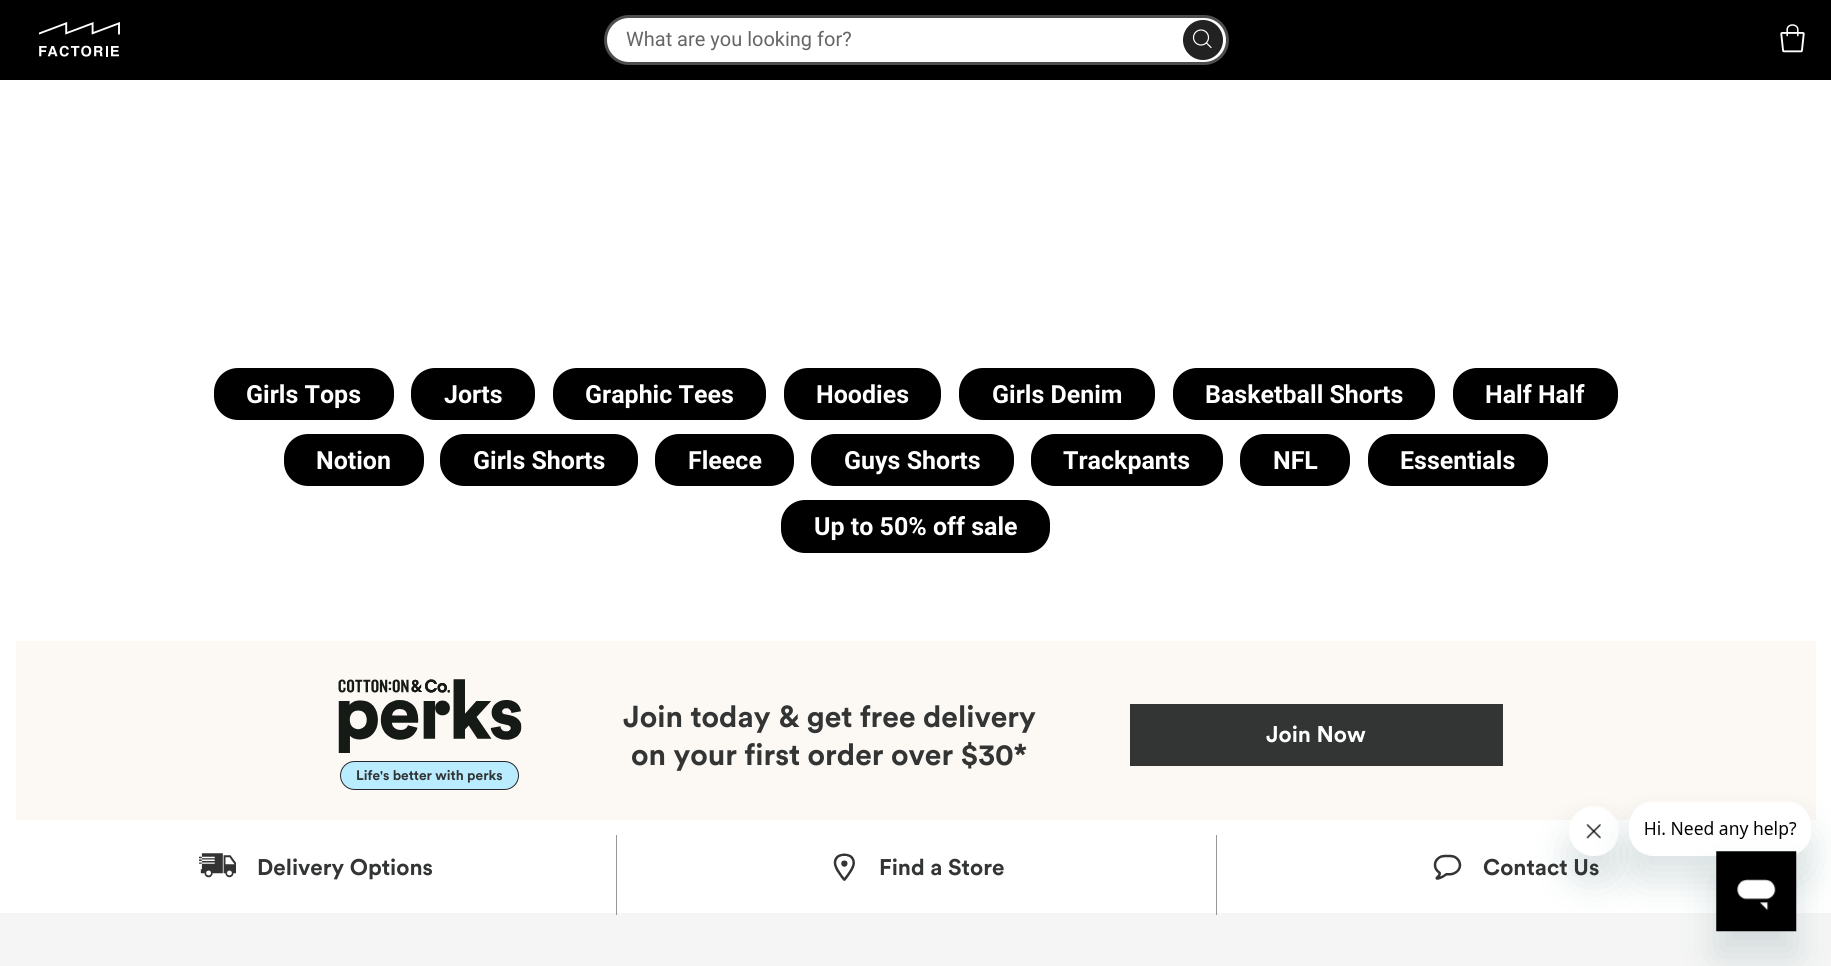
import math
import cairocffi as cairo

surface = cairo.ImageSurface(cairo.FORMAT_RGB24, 1831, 966)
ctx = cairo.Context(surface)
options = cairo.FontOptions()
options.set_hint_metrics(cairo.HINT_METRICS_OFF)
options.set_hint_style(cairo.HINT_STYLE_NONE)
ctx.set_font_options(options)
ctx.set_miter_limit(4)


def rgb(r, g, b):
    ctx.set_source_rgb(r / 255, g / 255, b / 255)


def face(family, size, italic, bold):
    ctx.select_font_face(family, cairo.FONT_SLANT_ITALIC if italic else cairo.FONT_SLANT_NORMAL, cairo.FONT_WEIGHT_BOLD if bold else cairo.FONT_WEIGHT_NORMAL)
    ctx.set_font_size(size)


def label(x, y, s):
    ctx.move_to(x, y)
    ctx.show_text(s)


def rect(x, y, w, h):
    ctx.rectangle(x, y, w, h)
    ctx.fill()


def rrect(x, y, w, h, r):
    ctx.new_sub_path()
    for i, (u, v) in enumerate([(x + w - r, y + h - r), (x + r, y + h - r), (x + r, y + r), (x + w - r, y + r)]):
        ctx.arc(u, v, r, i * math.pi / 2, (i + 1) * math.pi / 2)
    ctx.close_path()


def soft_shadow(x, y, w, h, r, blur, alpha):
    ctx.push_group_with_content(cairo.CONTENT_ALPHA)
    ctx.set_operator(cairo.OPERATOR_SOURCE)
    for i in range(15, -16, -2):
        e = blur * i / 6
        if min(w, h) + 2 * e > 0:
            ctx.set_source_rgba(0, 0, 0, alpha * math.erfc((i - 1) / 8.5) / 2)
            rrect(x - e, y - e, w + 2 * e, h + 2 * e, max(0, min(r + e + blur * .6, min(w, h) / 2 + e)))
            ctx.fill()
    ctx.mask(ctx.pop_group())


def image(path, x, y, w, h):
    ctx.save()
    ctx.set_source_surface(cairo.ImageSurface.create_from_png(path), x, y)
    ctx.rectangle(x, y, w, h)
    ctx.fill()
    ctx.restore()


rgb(255, 255, 255)
ctx.paint()
rgb(0, 0, 0)
rect(0, 0, 1831, 80)
image('image0.png', 39, 22, 81, 35)
rgb(255, 255, 255)
rrect(605.5, 16.5, 622, 47, 23.5)
ctx.fill_preserve()
rgb(77, 77, 77)
ctx.set_line_width(3)
ctx.stroke()
face('Roboto', 20, 0, 0)
rgb(102, 102, 102)
label(626, 46, 'What are you looking for?')
rgb(34, 34, 34)
ctx.new_path()
ctx.arc(1203, 40, 20, 0, 2 * math.pi)
ctx.fill()
ctx.new_path()
ctx.move_to(1206.5, 43)
ctx.line_to(1211, 47.5)
rgb(255, 255, 255)
ctx.set_line_width(1.2)
ctx.set_line_cap(cairo.LINE_CAP_ROUND)
ctx.stroke()
ctx.arc(1201, 37.5, 7.5, 0, 2 * math.pi)
ctx.set_line_cap(cairo.LINE_CAP_BUTT)
ctx.stroke()
image('image1.png', 1780, 24, 25, 29)
rgb(0, 0, 0)
rrect(215.5, 369.5, 177, 49, 22.5)
ctx.fill_preserve()
ctx.set_line_width(3)
ctx.stroke()
face('Roboto', 25, 0, 1)
rgb(255, 255, 255)
label(246, 403, 'Girls Tops')
rgb(0, 0, 0)
rrect(412.5, 369.5, 121, 49, 22.5)
ctx.fill_preserve()
ctx.stroke()
rgb(255, 255, 255)
label(444, 403, 'Jorts')
rgb(0, 0, 0)
rrect(554.5, 369.5, 210, 49, 22.5)
ctx.fill_preserve()
ctx.stroke()
rgb(255, 255, 255)
label(585, 403, 'Graphic Tees')
rgb(0, 0, 0)
rrect(785.5, 369.5, 154, 49, 22.5)
ctx.fill_preserve()
ctx.stroke()
rgb(255, 255, 255)
label(816, 403, 'Hoodies')
rgb(0, 0, 0)
rrect(960.5, 369.5, 193, 49, 22.5)
ctx.fill_preserve()
ctx.stroke()
rgb(255, 255, 255)
label(992, 403, 'Girls Denim')
rgb(0, 0, 0)
rrect(1174.5, 369.5, 259, 49, 22.5)
ctx.fill_preserve()
ctx.stroke()
rgb(255, 255, 255)
label(1205, 403, 'Basketball Shorts')
rgb(0, 0, 0)
rrect(1454.5, 369.5, 162, 49, 22.5)
ctx.fill_preserve()
ctx.stroke()
rgb(255, 255, 255)
label(1485, 403, 'Half Half')
rgb(0, 0, 0)
rrect(285.5, 435.5, 137, 49, 22.5)
ctx.fill_preserve()
ctx.stroke()
rgb(255, 255, 255)
label(316, 469, 'Notion')
rgb(0, 0, 0)
rrect(441.5, 435.5, 195, 49, 22.5)
ctx.fill_preserve()
ctx.stroke()
rgb(255, 255, 255)
label(473, 469, 'Girls Shorts')
rgb(0, 0, 0)
rrect(656.5, 435.5, 136, 49, 22.5)
ctx.fill_preserve()
ctx.stroke()
rgb(255, 255, 255)
label(688, 469, 'Fleece')
rgb(0, 0, 0)
rrect(812.5, 435.5, 200, 49, 22.5)
ctx.fill_preserve()
ctx.stroke()
rgb(255, 255, 255)
label(844, 469, 'Guys Shorts')
rgb(0, 0, 0)
rrect(1032.5, 435.5, 189, 49, 22.5)
ctx.fill_preserve()
ctx.stroke()
rgb(255, 255, 255)
label(1063, 469, 'Trackpants')
rgb(0, 0, 0)
rrect(1241.5, 435.5, 107, 49, 22.5)
ctx.fill_preserve()
ctx.stroke()
rgb(255, 255, 255)
label(1273, 469, 'NFL')
rgb(0, 0, 0)
rrect(1369.5, 435.5, 177, 49, 22.5)
ctx.fill_preserve()
ctx.stroke()
rgb(255, 255, 255)
label(1400, 469, 'Essentials')
rgb(0, 0, 0)
rrect(782.5, 501.5, 266, 50, 22.5)
ctx.fill_preserve()
ctx.stroke()
rgb(255, 255, 255)
label(814, 535, 'Up to 50% off sale')
rgb(252, 248, 244)
rect(16, 641, 1800, 179)
face('Circular', 30, 0, 1)
rgb(51, 52, 52)
label(623, 727, 'Join today & get free delivery')
label(631, 765, 'on your first order over $30*')
rect(1130, 704, 373, 62)
face('Circular', 22.5, 0, 1)
rgb(255, 255, 255)
label(1266, 742, 'Join Now')
image('image2.png', 338, 679, 184, 74)
rgb(185, 236, 255)
rrect(340.5, 761.5, 178, 28, 14)
ctx.fill_preserve()
rgb(39, 39, 42)
ctx.set_line_width(1)
ctx.stroke()
face('Circular', 13.75, 0, 1)
rgb(51, 52, 52)
label(356, 780, 'Life\'s better with perks')
image('image3.png', 199, 853, 37, 25)
face('Circular', 22.5, 0, 1)
label(257, 875, 'Delivery Options')
rgb(245, 245, 245)
rect(0, 913, 1831, 53)
rgb(151, 151, 151)
rect(616, 835, 1, 80)
image('image4.png', 833, 853, 22, 28)
rgb(51, 52, 52)
label(879, 875, 'Find a Store')
rgb(151, 151, 151)
rect(1216, 835, 1, 80)
image('image5.png', 1433, 854, 29, 26)
rgb(51, 52, 52)
label(1483, 875, 'Contact Us')
ctx.save()
ctx.set_fill_rule(cairo.FILL_RULE_EVEN_ODD)
ctx.new_path()
ctx.move_to(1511, 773)
ctx.line_to(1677, 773)
ctx.line_to(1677, 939)
ctx.line_to(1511, 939)
ctx.close_path()
ctx.move_to(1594, 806)
ctx.curve_to(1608, 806, 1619, 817, 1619, 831)
ctx.curve_to(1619, 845, 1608, 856, 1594, 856)
ctx.curve_to(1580, 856, 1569, 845, 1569, 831)
ctx.curve_to(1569, 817, 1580, 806, 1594, 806)
ctx.close_path()
ctx.clip()
rgb(23, 73, 77)
soft_shadow(1569, 831, 50, 50, 25, 19, 0.15)
ctx.restore()
image('image7.png', 1572, 806, 44, 33)
ctx.save()
ctx.set_fill_rule(cairo.FILL_RULE_EVEN_ODD)
ctx.new_path()
ctx.move_to(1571, 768)
ctx.line_to(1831, 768)
ctx.line_to(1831, 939)
ctx.line_to(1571, 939)
ctx.close_path()
ctx.move_to(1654, 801)
ctx.line_to(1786, 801)
ctx.curve_to(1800, 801, 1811, 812, 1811, 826)
ctx.line_to(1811, 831)
ctx.curve_to(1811, 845, 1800, 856, 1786, 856)
ctx.line_to(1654, 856)
ctx.curve_to(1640, 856, 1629, 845, 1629, 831)
ctx.line_to(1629, 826)
ctx.curve_to(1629, 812, 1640, 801, 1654, 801)
ctx.close_path()
ctx.clip()
rgb(23, 73, 77)
soft_shadow(1629, 826, 182, 55, 25, 19, 0.15)
ctx.restore()
image('image6.png', 1629, 802, 181, 50)
rgb(23, 73, 77)
soft_shadow(1716, 876, 80, 80, 0, 19, 0.15)
image('image8.png', 1716, 851, 81, 81)
surface.write_to_png('render.png')
